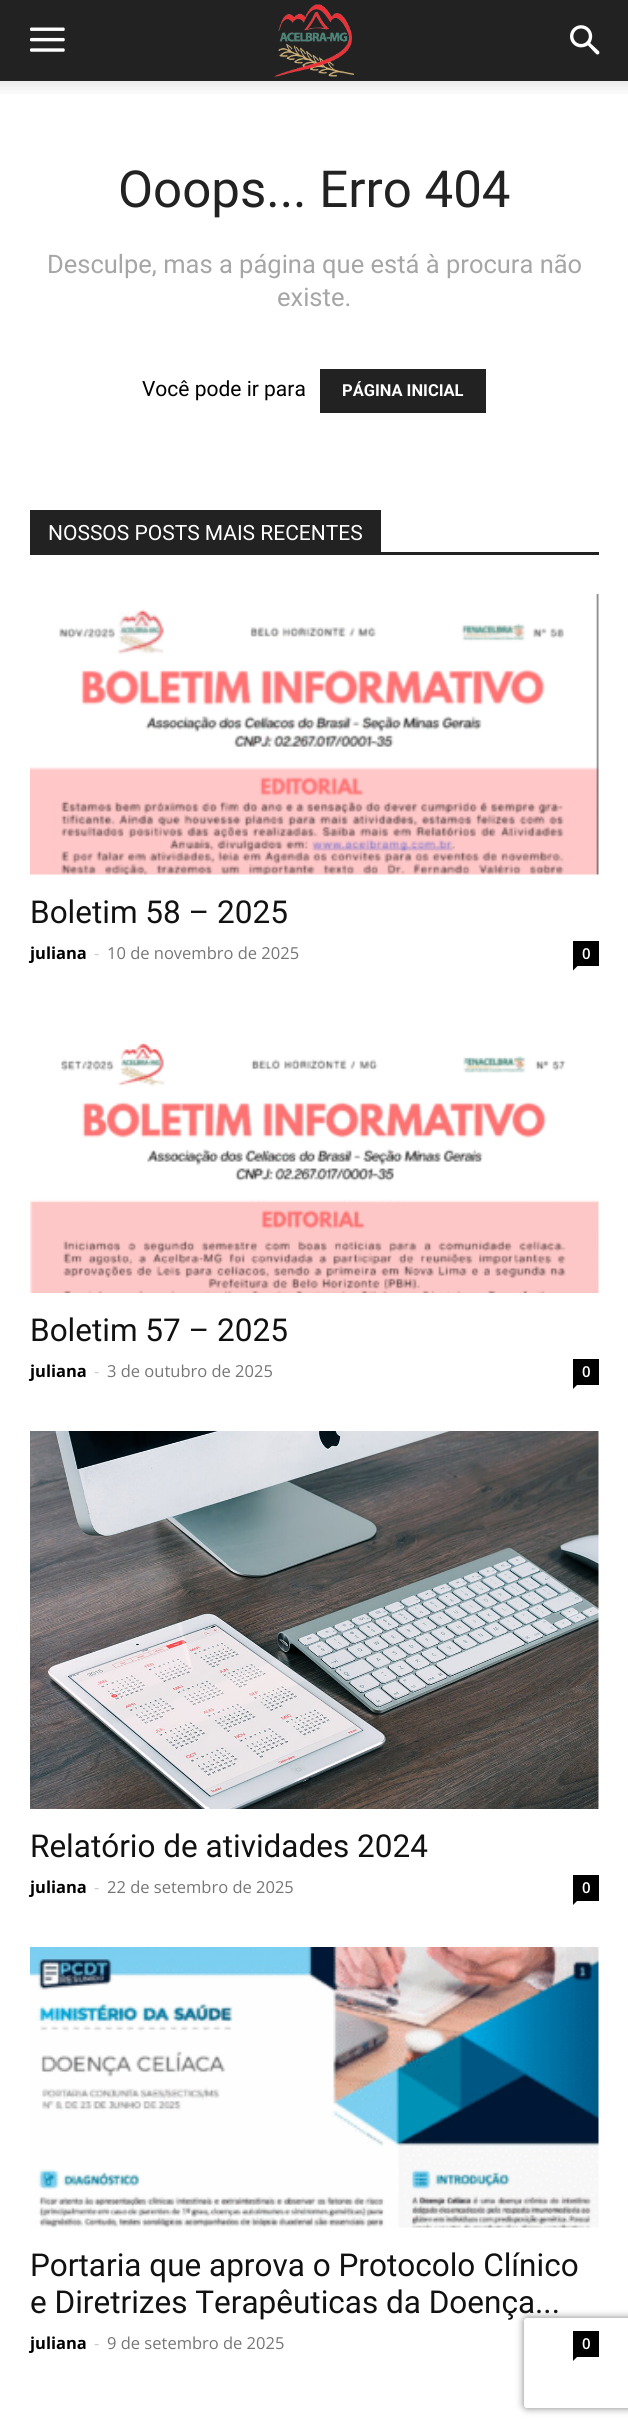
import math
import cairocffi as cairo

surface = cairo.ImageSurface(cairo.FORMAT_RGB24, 628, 2428)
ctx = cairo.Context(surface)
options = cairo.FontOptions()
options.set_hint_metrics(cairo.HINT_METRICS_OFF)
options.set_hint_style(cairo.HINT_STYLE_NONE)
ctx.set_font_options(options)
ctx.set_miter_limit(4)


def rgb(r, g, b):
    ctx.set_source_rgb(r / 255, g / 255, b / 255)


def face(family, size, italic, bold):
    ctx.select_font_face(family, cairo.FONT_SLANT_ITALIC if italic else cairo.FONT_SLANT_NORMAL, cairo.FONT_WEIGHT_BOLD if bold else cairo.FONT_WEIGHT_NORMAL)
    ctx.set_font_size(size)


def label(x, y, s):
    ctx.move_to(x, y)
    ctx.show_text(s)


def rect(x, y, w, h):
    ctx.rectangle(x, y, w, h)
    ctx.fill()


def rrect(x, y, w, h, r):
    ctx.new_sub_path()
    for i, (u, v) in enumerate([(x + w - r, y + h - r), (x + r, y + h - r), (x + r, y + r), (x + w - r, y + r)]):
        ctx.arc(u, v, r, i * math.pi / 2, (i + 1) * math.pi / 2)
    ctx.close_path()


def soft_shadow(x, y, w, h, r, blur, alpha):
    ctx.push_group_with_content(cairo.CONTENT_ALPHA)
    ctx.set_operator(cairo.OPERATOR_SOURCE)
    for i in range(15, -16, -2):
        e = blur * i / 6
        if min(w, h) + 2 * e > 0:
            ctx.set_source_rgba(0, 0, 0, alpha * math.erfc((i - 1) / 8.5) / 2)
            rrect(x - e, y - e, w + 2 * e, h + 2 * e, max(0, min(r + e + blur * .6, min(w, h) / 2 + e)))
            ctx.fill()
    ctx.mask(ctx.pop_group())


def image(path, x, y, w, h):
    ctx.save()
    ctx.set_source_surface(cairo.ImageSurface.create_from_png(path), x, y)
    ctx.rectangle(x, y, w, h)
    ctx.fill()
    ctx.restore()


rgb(255, 255, 255)
ctx.paint()
rgb(34, 34, 34)
rect(0, 0, 628, 81)
image('image0.png', 30, 27, 35, 25)
image('image1.png', 274, 4, 80, 73)
image('image2.png', 570, 25, 30, 30)
image('image3.png', 0, 81, 628, 13)
face('Roboto', 51, 0, 0)
label(118, 207, 'Ooops... Erro 404')
face('Roboto', 25.5, 0, 0)
rgb(166, 166, 166)
label(47, 273, 'Desculpe, mas a página que está à procura não')
label(277, 306, 'existe.')
face('Roboto', 21, 0, 0)
rgb(0, 0, 0)
label(142, 396, 'Você pode ir para')
rgb(34, 34, 34)
rect(320, 369, 166, 44)
face('Roboto', 16.5, 0, 1)
rgb(255, 255, 255)
label(342, 396, 'PÁGINA INICIAL')
rgb(34, 34, 34)
rect(30, 552, 569, 3)
rect(30, 510, 351, 42)
face('Roboto', 21, 0, 0)
rgb(255, 255, 255)
label(48, 540, 'NOSSOS POSTS MAIS RECENTES')
image('image4.png', 30, 594, 569, 281)
face('Roboto', 31.5, 0, 0)
rgb(17, 17, 17)
label(30, 923, 'Boletim 58 – 2025')
face('Open Sans', 16.5, 0, 1)
rgb(0, 0, 0)
label(30, 959, 'juliana')
face('Open Sans', 16.5, 0, 0)
rgb(204, 204, 204)
label(94, 959, '-')
rgb(118, 118, 118)
label(107, 959, '10 de novembro de 2025')
rgb(0, 0, 0)
rect(573, 941, 26, 25)
face('Open Sans SemiBold', 15, 0, 0)
rgb(255, 255, 255)
label(582, 959, '0')
rgb(0, 0, 0)
ctx.new_path()
ctx.move_to(573, 966)
ctx.line_to(577.5, 966)
ctx.line_to(573, 970.5)
ctx.close_path()
ctx.fill()
image('image5.png', 30, 1042, 569, 251)
face('Roboto', 31.5, 0, 0)
rgb(17, 17, 17)
label(30, 1341, 'Boletim 57 – 2025')
face('Open Sans', 16.5, 0, 1)
rgb(0, 0, 0)
label(30, 1377, 'juliana')
face('Open Sans', 16.5, 0, 0)
rgb(204, 204, 204)
label(94, 1377, '-')
rgb(118, 118, 118)
label(107, 1377, '3 de outubro de 2025')
rgb(0, 0, 0)
rect(573, 1359, 26, 26)
face('Open Sans SemiBold', 15, 0, 0)
rgb(255, 255, 255)
label(582, 1377, '0')
rgb(0, 0, 0)
ctx.new_path()
ctx.move_to(573, 1384.5)
ctx.line_to(577.5, 1384.5)
ctx.line_to(573, 1389)
ctx.close_path()
ctx.fill()
image('image6.png', 30, 1431, 569, 378)
face('Roboto', 31.5, 0, 0)
rgb(17, 17, 17)
label(30, 1857, 'Relatório de atividades 2024')
face('Open Sans', 16.5, 0, 1)
rgb(0, 0, 0)
label(30, 1893, 'juliana')
face('Open Sans', 16.5, 0, 0)
rgb(204, 204, 204)
label(94, 1893, '-')
rgb(118, 118, 118)
label(107, 1893, '22 de setembro de 2025')
rgb(0, 0, 0)
rect(573, 1875, 26, 26)
face('Open Sans SemiBold', 15, 0, 0)
rgb(255, 255, 255)
label(582, 1893, '0')
rgb(0, 0, 0)
ctx.new_path()
ctx.move_to(573, 1900.5)
ctx.line_to(577.5, 1900.5)
ctx.line_to(573, 1905)
ctx.close_path()
ctx.fill()
image('image7.png', 30, 1947, 569, 281)
face('Roboto', 31.5, 0, 0)
rgb(17, 17, 17)
label(30, 2276, 'Portaria que aprova o Protocolo Clínico')
label(30, 2313, 'e Diretrizes Terapêuticas da Doença...')
face('Open Sans', 16.5, 0, 1)
rgb(0, 0, 0)
label(30, 2349, 'juliana')
face('Open Sans', 16.5, 0, 0)
rgb(204, 204, 204)
label(94, 2349, '-')
rgb(118, 118, 118)
label(107, 2349, '9 de setembro de 2025')
rgb(0, 0, 0)
rect(573, 2331, 26, 26)
face('Open Sans SemiBold', 15, 0, 0)
rgb(255, 255, 255)
label(582, 2349, '0')
rgb(0, 0, 0)
ctx.new_path()
ctx.move_to(573, 2356.5)
ctx.line_to(577.5, 2356.5)
ctx.line_to(573, 2361)
ctx.close_path()
ctx.fill()
ctx.save()
ctx.set_fill_rule(cairo.FILL_RULE_EVEN_ODD)
ctx.new_path()
ctx.move_to(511, 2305)
ctx.line_to(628, 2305)
ctx.line_to(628, 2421)
ctx.line_to(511, 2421)
ctx.close_path()
ctx.move_to(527, 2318)
ctx.line_to(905, 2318)
ctx.curve_to(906.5, 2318, 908, 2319.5, 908, 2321)
ctx.line_to(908, 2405)
ctx.curve_to(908, 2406.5, 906.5, 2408, 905, 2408)
ctx.line_to(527, 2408)
ctx.curve_to(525.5, 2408, 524, 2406.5, 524, 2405)
ctx.line_to(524, 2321)
ctx.curve_to(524, 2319.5, 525.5, 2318, 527, 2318)
ctx.close_path()
ctx.clip()
rgb(128, 128, 128)
soft_shadow(524, 2318, 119, 90, 3, 4, 1)
ctx.restore()
surface.write_to_png('render.png')
